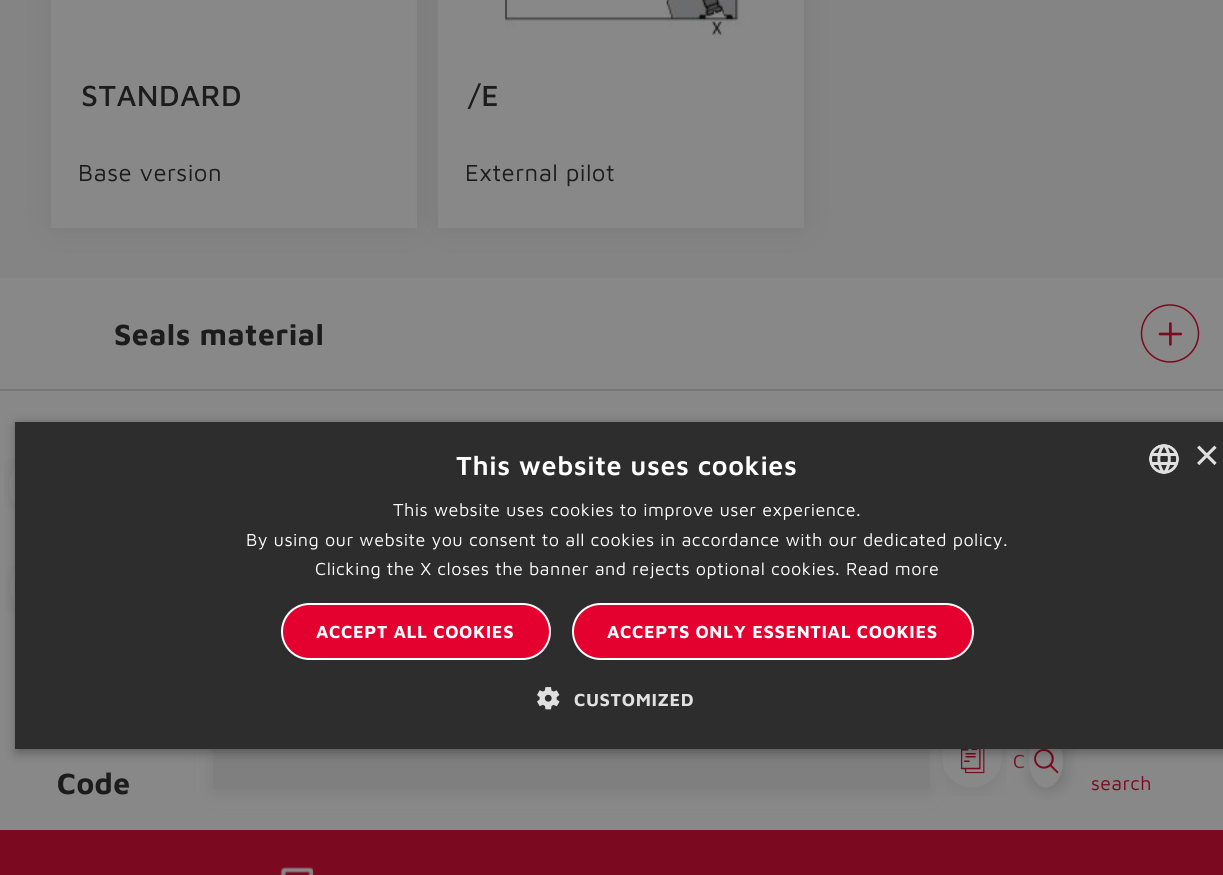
import math
import cairocffi as cairo

surface = cairo.ImageSurface(cairo.FORMAT_RGB24, 1223, 875)
ctx = cairo.Context(surface)
options = cairo.FontOptions()
options.set_hint_metrics(cairo.HINT_METRICS_OFF)
options.set_hint_style(cairo.HINT_STYLE_NONE)
ctx.set_font_options(options)
ctx.set_miter_limit(4)


def rgb(r, g, b):
    ctx.set_source_rgb(r / 255, g / 255, b / 255)


def face(family, size, italic, bold):
    ctx.select_font_face(family, cairo.FONT_SLANT_ITALIC if italic else cairo.FONT_SLANT_NORMAL, cairo.FONT_WEIGHT_BOLD if bold else cairo.FONT_WEIGHT_NORMAL)
    ctx.set_font_size(size)


def label(x, y, s):
    ctx.move_to(x, y)
    ctx.show_text(s)


def tracked(x, y, s, letter, word):
    ctx.move_to(x, y)
    for ch in s:
        ctx.show_text(ch)
        ctx.rel_move_to(letter + word * (ch == ' '), 0)


def rect(x, y, w, h):
    ctx.rectangle(x, y, w, h)
    ctx.fill()


def rrect(x, y, w, h, r):
    ctx.new_sub_path()
    for i, (u, v) in enumerate([(x + w - r, y + h - r), (x + r, y + h - r), (x + r, y + r), (x + w - r, y + r)]):
        ctx.arc(u, v, r, i * math.pi / 2, (i + 1) * math.pi / 2)
    ctx.close_path()


def soft_shadow(x, y, w, h, r, blur, alpha):
    ctx.push_group_with_content(cairo.CONTENT_ALPHA)
    ctx.set_operator(cairo.OPERATOR_SOURCE)
    for i in range(15, -16, -2):
        e = blur * i / 6
        if min(w, h) + 2 * e > 0:
            ctx.set_source_rgba(0, 0, 0, alpha * math.erfc((i - 1) / 8.5) / 2)
            rrect(x - e, y - e, w + 2 * e, h + 2 * e, max(0, min(r + e + blur * .6, min(w, h) / 2 + e)))
            ctx.fill()
    ctx.mask(ctx.pop_group())


def image(path, x, y, w, h):
    ctx.save()
    ctx.set_source_surface(cairo.ImageSurface.create_from_png(path), x, y)
    ctx.rectangle(x, y, w, h)
    ctx.fill()
    ctx.restore()


rgb(136, 136, 136)
ctx.paint()
rgb(132, 132, 132)
rect(0, 0, 1223, 278)
rgb(114, 114, 114)
soft_shadow(59, -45, 351, 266, 0, 15, 1)
rgb(136, 136, 136)
rect(51, 0, 366, 228)
face('Maven Pro Medium', 30, 0, 0)
rgb(29, 28, 28)
tracked(81, 106, 'STANDARD', 0.5, 0)
face('Maven Pro', 24, 0, 0)
tracked(78, 181, 'Base version', 0.4, 0)
rgb(114, 114, 114)
soft_shadow(446, -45, 351, 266, 0, 15, 1)
rgb(136, 136, 136)
rect(438, 0, 366, 228)
image('image0.png', 505, 0, 240, 39)
face('Maven Pro Medium', 30, 0, 0)
rgb(29, 28, 28)
tracked(468, 106, '/E', 0.5, 0)
face('Maven Pro', 24, 0, 0)
tracked(465, 181, 'External pilot', 0.4, 0)
rgb(119, 119, 119)
rect(0, 389, 1223, 2)
face('Maven Pro', 30, 0, 1)
rgb(29, 28, 28)
tracked(114, 345, 'Seals material', 0.5, 0)
image('image1.png', 1140, 304, 60, 59)
image('image2.png', 4, 458, 11, 50)
image('image3.png', 5, 566, 10, 47)
image('image4.png', 937, 749, 70, 47)
rgb(125, 125, 125)
soft_shadow(213, 737, 717, 55, 0, 9, 1)
rgb(127, 127, 127)
rect(213, 749, 717, 40)
face('Maven Pro', 19.5, 0, 0)
rgb(123, 9, 31)
tracked(1013, 768, 'C', 0.4, 0)
face('Maven Pro', 30, 0, 1)
rgb(29, 28, 28)
tracked(57, 794, 'Code', 0.5, 0)
rgb(120, 119, 119)
soft_shadow(1029, 734, 38, 57, 19, 7.5, 1)
rgb(136, 136, 136)
ctx.new_path()
ctx.move_to(1046, 733.5)
ctx.curve_to(1055.5, 733.5, 1063, 745.5, 1063, 760.5)
ctx.curve_to(1063, 775.5, 1055.5, 787.5, 1046, 787.5)
ctx.curve_to(1036.5, 787.5, 1029, 775.5, 1029, 760.5)
ctx.curve_to(1029, 745.5, 1036.5, 733.5, 1046, 733.5)
ctx.close_path()
ctx.fill()
image('image5.png', 1034, 749, 25, 25)
face('Maven Pro', 19.5, 0, 0)
rgb(123, 9, 31)
tracked(1091, 790, 'search', 0.4, 0)
rect(0, 830, 1223, 45)
image('image6.png', 280, 867, 34, 8)
rgb(0, 0, 0)
soft_shadow(17, 425, 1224, 327, 0, 6, 0.35)
rgb(45, 45, 45)
rect(15, 422, 1208, 327)
face('Maven Pro SemiBold', 27, 0, 0)
rgb(255, 255, 255)
tracked(456, 475, 'This website uses cookies', 0.6, 0)
image('image7.png', 1149, 444, 30, 30)
face('Liberation Sans', 44, 0, 0)
rgb(224, 224, 224)
label(1194, 470, '×')
face('Maven Pro', 18, 0, 0)
rgb(255, 255, 255)
tracked(393, 516, 'This website uses cookies to improve user experience.', 0.45, 0)
tracked(246, 546, 'By using our website you consent to all cookies in accordance with our dedicated policy.', 0.45, 0)
tracked(315, 575, 'Clicking the X closes the banner and rejects optional cookies. Read more', 0.45, 0)
rgb(228, 1, 47)
rrect(282, 604, 268, 55, 27.5)
ctx.fill_preserve()
rgb(255, 255, 255)
ctx.stroke()
face('Maven Pro', 18, 0, 1)
tracked(316, 638, 'ACCEPT ALL COOKIES', 0.6, 0)
rgb(228, 1, 47)
rrect(573, 604, 400, 55, 27.5)
ctx.fill_preserve()
rgb(255, 255, 255)
ctx.stroke()
tracked(607, 638, 'ACCEPTS ONLY ESSENTIAL COOKIES', 0.6, 0)
image('image8.png', 537, 687, 23, 23)
rgb(224, 224, 224)
tracked(574, 706, 'CUSTOMIZED', 0.6, 0)
surface.write_to_png('render.png')
